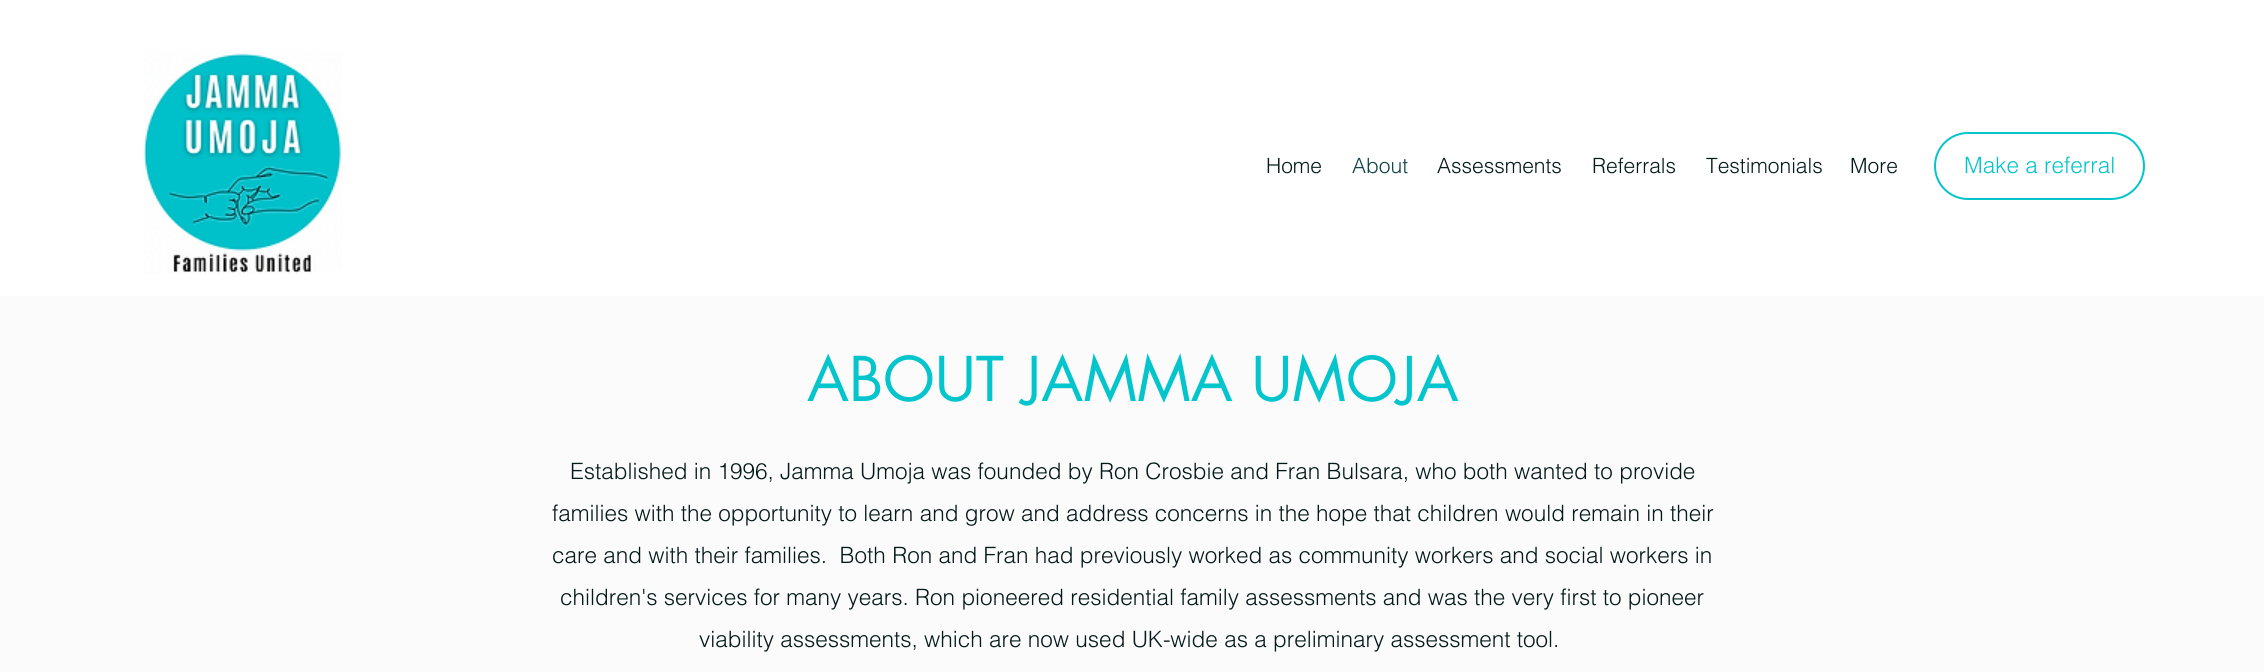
import math
import cairocffi as cairo

surface = cairo.ImageSurface(cairo.FORMAT_RGB24, 2264, 672)
ctx = cairo.Context(surface)
options = cairo.FontOptions()
options.set_hint_metrics(cairo.HINT_METRICS_OFF)
options.set_hint_style(cairo.HINT_STYLE_NONE)
ctx.set_font_options(options)
ctx.set_miter_limit(4)


def rgb(r, g, b):
    ctx.set_source_rgb(r / 255, g / 255, b / 255)


def face(family, size, italic, bold):
    ctx.select_font_face(family, cairo.FONT_SLANT_ITALIC if italic else cairo.FONT_SLANT_NORMAL, cairo.FONT_WEIGHT_BOLD if bold else cairo.FONT_WEIGHT_NORMAL)
    ctx.set_font_size(size)


def label(x, y, s):
    ctx.move_to(x, y)
    ctx.show_text(s)


def rect(x, y, w, h):
    ctx.rectangle(x, y, w, h)
    ctx.fill()


def rrect(x, y, w, h, r):
    ctx.new_sub_path()
    for i, (u, v) in enumerate([(x + w - r, y + h - r), (x + r, y + h - r), (x + r, y + r), (x + w - r, y + r)]):
        ctx.arc(u, v, r, i * math.pi / 2, (i + 1) * math.pi / 2)
    ctx.close_path()


def image(path, x, y, w, h):
    ctx.save()
    ctx.set_source_surface(cairo.ImageSurface.create_from_png(path), x, y)
    ctx.rectangle(x, y, w, h)
    ctx.fill()
    ctx.restore()


rgb(255, 255, 255)
ctx.paint()
image('image0.png', 143, 51, 200, 223)
face('helvetica Light', 21, 0, 0)
rgb(5, 25, 26)
label(1266, 173, 'Home')
rgb(13, 66, 69)
label(1352, 173, 'About')
rgb(5, 25, 26)
label(1437, 173, 'Assessments')
label(1592, 173, 'Referrals')
label(1706, 173, 'Testimonials')
label(1850, 173, 'More')
rrect(1935, 133, 209, 66, 33)
rgb(4, 196, 204)
ctx.stroke()
face('helvetica Light', 22.5, 0, 0)
label(1964, 173, 'Make a referral')
rgb(251, 251, 251)
rect(0, 296, 2264, 376)
face('futura', 60, 0, 0)
rgb(4, 196, 204)
label(807, 401, 'ABOUT JAMMA UMOJA')
face('helvetica Light', 22.5, 0, 0)
rgb(5, 25, 26)
label(570, 479, 'Established in 1996, Jamma Umoja was founded by Ron Crosbie and Fran Bulsara, who both wanted to provide')
label(552, 521, 'families with the opportunity to learn and grow and address concerns in the hope that children would remain in their')
label(552, 563, 'care and with their families.  Both Ron and Fran had previously worked as community workers and social workers in')
label(560, 605, 'children\'s services for many years. Ron pioneered residential family assessments and was the very first to pioneer')
label(699, 647, 'viability assessments, which are now used UK-wide as a preliminary assessment tool.')
surface.write_to_png('render.png')
